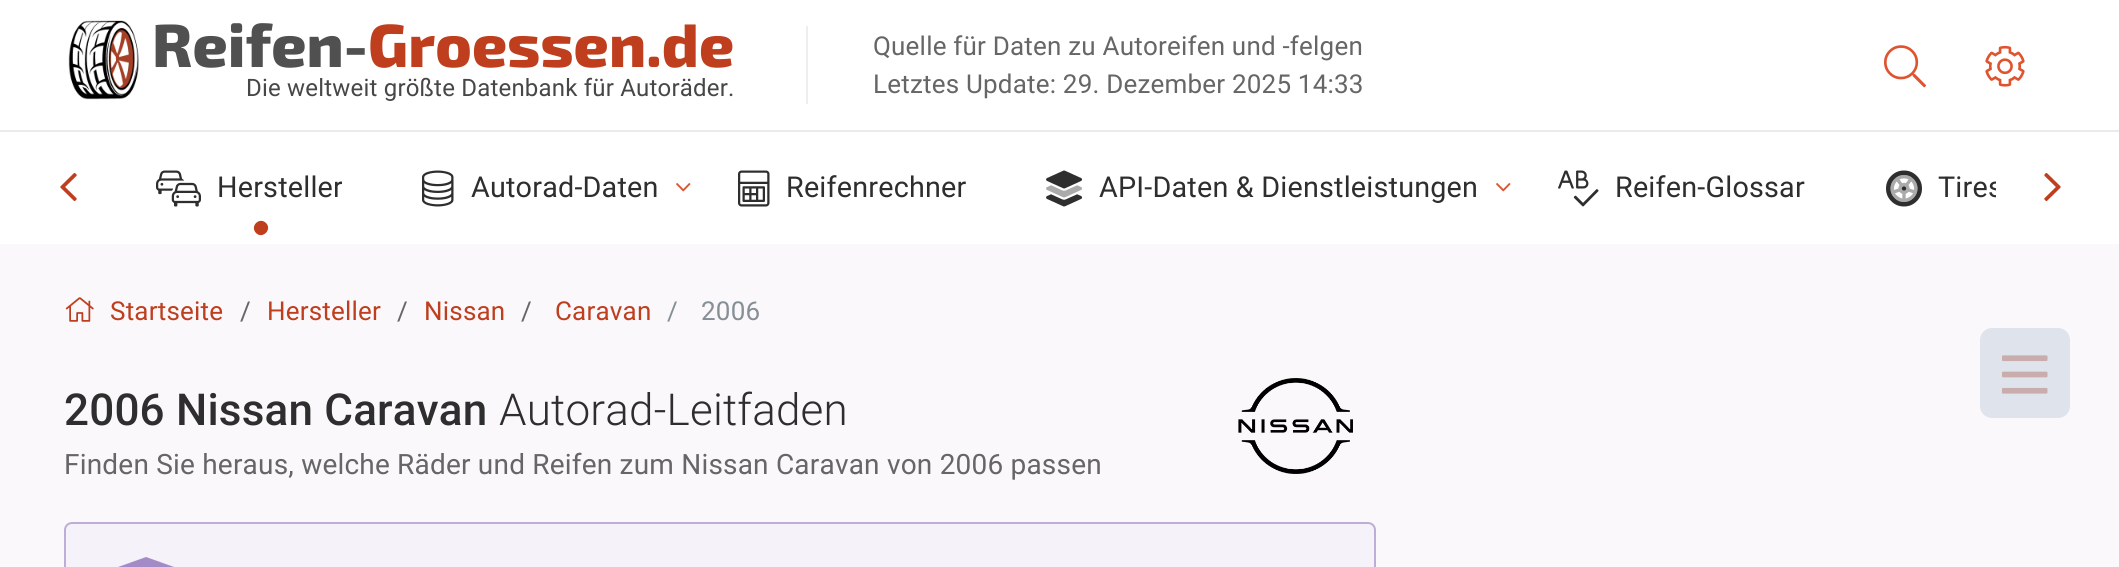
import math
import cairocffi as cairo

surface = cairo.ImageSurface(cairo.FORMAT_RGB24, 2119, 567)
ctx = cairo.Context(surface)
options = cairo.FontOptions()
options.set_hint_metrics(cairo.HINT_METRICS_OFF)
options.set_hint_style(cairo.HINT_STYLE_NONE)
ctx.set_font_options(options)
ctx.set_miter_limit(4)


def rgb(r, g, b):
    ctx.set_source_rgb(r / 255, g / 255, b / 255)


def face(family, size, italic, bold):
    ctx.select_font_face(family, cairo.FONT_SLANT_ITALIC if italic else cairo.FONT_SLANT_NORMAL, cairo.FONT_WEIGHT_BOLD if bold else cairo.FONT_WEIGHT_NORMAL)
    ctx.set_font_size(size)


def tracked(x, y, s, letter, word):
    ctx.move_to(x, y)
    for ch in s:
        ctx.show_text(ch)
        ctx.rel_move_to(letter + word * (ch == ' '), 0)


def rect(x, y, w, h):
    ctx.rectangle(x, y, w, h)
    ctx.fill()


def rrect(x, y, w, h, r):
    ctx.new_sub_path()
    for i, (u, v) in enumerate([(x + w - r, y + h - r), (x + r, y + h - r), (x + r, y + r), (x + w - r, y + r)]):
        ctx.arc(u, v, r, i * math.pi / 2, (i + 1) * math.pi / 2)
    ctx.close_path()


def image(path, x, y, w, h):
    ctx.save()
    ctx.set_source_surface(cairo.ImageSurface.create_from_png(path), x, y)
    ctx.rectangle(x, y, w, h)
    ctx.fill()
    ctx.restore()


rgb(255, 255, 255)
ctx.paint()
rgb(234, 234, 234)
rect(0, 130, 2119, 2)
image('image0.png', 68, 20, 71, 80)
face('Exo 2 ExtraBold', 60.75, 0, 0)
rgb(80, 80, 80)
tracked(152, 67, 'Reifen-', 0.2, 0)
rgb(190, 62, 29)
tracked(368, 67, 'Groessen.de', 0.2, 0)
face('Roboto', 24, 0, 0)
rgb(71, 71, 71)
tracked(246, 96, 'Die weltweit größte Datenbank für Autoräder.', 0.2, 0)
rgb(238, 238, 238)
rect(806, 26, 2, 78)
face('Roboto', 26, 0, 0)
rgb(102, 102, 102)
tracked(873, 55, 'Quelle für Daten zu Autoreifen und -felgen', 0.2, 0)
tracked(873, 93, 'Letztes Update: 29. Dezember 2025 14:33', 0.2, 0)
image('image1.png', 1884, 45, 42, 43)
image('image2.png', 1985, 45, 40, 42)
rgb(250, 248, 251)
rect(0, 244, 2119, 323)
image('image3.png', 65, 297, 29, 25)
rgb(190, 62, 29)
tracked(110, 320, 'Startseite', 0.2, 0)
rgb(102, 102, 102)
tracked(240, 320, '/', 0.2, 0)
rgb(190, 62, 29)
tracked(267, 320, 'Hersteller', 0.2, 0)
rgb(102, 102, 102)
tracked(397, 320, '/', 0.2, 0)
rgb(190, 62, 29)
tracked(424, 320, 'Nissan', 0.2, 0)
rgb(102, 102, 102)
tracked(521, 320, '/', 0.2, 0)
rgb(190, 62, 29)
tracked(555, 320, 'Caravan', 0.2, 0)
rgb(134, 142, 150)
tracked(667, 320, '/', 0.2, 0)
tracked(701, 320, '2006', 0.2, 0)
face('Roboto Medium', 44, 0, 0)
rgb(46, 46, 46)
tracked(64, 425, '2006 Nissan Caravan', 0.2, 0)
face('Roboto Light', 44, 0, 0)
tracked(499, 425, 'Autorad-Leitfaden', 0.2, 0)
face('Roboto', 28, 0, 0)
rgb(102, 102, 102)
tracked(64, 474, 'Finden Sie heraus, welche Räder und Reifen zum Nissan Caravan von 2006 passen', 0.2, 0)
image('image4.png', 1238, 378, 115, 96)
rgb(245, 242, 249)
rrect(65, 523, 1310, 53, 7)
ctx.fill_preserve()
rgb(190, 174, 215)
ctx.stroke()
rgb(163, 140, 198)
ctx.new_path()
ctx.move_to(118, 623)
ctx.line_to(108, 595)
ctx.line_to(118, 567)
ctx.line_to(146, 557)
ctx.line_to(174, 567)
ctx.line_to(184, 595)
ctx.line_to(174, 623)
ctx.line_to(146, 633)
ctx.close_path()
ctx.fill()
image('image5.png', 60, 173, 17, 28)
image('image6.png', 156, 170, 45, 37)
ctx.save()
ctx.rectangle(216, 172, 126, 34)
ctx.clip()
face('Roboto', 28.75, 0, 0)
rgb(46, 46, 46)
tracked(217, 197, 'Hersteller', 0.2, 0)
ctx.restore()
rgb(190, 62, 29)
ctx.new_path()
ctx.move_to(256, 233)
ctx.curve_to(249.5, 226, 259.5, 216.5, 266, 223)
ctx.curve_to(272.5, 229.5, 262.5, 239.5, 256, 233)
ctx.close_path()
ctx.fill()
image('image7.png', 422, 170, 32, 37)
face('Roboto', 28.75, 0, 0)
rgb(46, 46, 46)
tracked(471, 197, 'Autorad-Daten', 0.2, 0)
image('image8.png', 676, 183, 15, 9)
image('image9.png', 738, 170, 32, 37)
ctx.save()
ctx.rectangle(786, 172, 180, 34)
ctx.clip()
tracked(786, 197, 'Reifenrechner', 0.2, 0)
ctx.restore()
image('image10.png', 1046, 170, 36, 37)
image('image11.png', 1046, 185, 36, 13)
tracked(1099, 197, 'API-Daten & Dienstleistungen', 0.2, 0)
image('image8.png', 1496, 183, 15, 9)
image('image12.png', 1558, 170, 41, 37)
tracked(1615, 197, 'Reifen-Glossar', 0.2, 0)
image('image13.png', 1886, 170, 36, 37)
image('image14.png', 1890, 175, 28, 27)
ctx.save()
ctx.rectangle(1938, 172, 58, 34)
ctx.clip()
tracked(1938, 197, 'Tires', 0.2, 0)
ctx.restore()
image('image15.png', 2044, 173, 17, 28)
rgb(223, 227, 236)
rrect(1980, 328, 90, 90, 12)
ctx.fill()
image('image16.png', 2002, 355, 46, 39)
surface.write_to_png('render.png')
